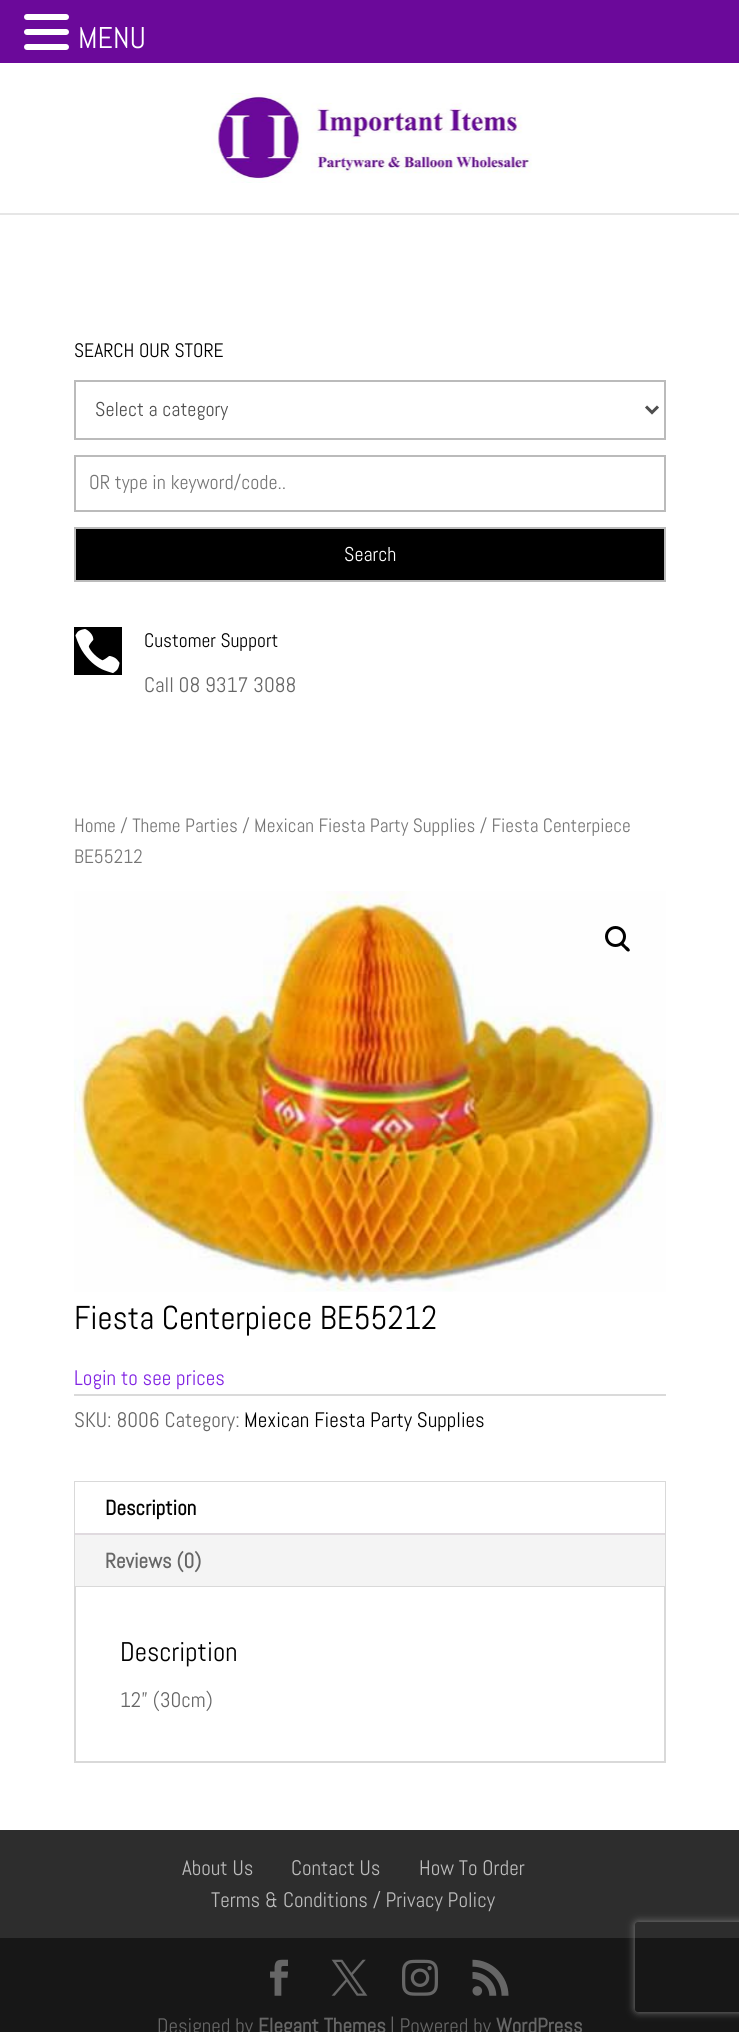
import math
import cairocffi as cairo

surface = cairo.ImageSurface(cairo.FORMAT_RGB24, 739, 2032)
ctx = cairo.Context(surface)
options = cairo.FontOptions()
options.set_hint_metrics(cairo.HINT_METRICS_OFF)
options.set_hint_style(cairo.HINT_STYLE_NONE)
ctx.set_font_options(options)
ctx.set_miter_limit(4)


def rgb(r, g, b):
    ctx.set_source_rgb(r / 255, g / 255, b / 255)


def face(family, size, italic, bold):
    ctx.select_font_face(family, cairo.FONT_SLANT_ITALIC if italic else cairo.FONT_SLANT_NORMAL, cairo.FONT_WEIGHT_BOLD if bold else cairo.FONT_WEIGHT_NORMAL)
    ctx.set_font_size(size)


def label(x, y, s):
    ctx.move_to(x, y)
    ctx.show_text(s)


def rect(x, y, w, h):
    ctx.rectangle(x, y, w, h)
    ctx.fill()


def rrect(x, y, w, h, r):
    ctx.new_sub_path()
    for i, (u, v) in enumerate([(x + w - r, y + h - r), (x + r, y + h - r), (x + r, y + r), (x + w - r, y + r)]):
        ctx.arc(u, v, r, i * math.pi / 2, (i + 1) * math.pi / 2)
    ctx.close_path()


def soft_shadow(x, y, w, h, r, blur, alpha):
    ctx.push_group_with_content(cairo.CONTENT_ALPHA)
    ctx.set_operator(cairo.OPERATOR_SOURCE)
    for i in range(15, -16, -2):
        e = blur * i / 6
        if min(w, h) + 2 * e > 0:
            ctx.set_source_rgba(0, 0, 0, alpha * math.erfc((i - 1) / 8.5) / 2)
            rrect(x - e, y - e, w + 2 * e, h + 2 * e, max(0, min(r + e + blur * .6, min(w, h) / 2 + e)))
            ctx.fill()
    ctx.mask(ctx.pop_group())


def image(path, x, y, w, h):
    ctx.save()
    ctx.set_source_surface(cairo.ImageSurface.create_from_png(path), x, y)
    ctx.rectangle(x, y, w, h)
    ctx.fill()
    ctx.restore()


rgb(255, 255, 255)
ctx.paint()
rgb(107, 9, 154)
rect(0, 0, 739, 63)
rgb(255, 255, 255)
rrect(24, 14, 45, 6, 3)
ctx.fill()
rrect(24, 29, 45, 6, 3)
ctx.fill()
rrect(24, 44, 45, 6, 3)
ctx.fill()
face('Abel', 30, 0, 0)
label(78, 48, 'MENU')
rgb(230, 230, 230)
ctx.new_path()
ctx.move_to(0, 213)
ctx.line_to(0, 215)
ctx.line_to(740, 215)
ctx.line_to(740, 65)
ctx.line_to(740, 213)
ctx.close_path()
ctx.fill()
image('image0.png', 211, 93, 321, 90)
face('Abel', 19.5, 0, 0)
rgb(0, 0, 0)
label(74, 357, 'SEARCH OUR STORE')
ctx.rectangle(75, 381, 590, 58)
rgb(187, 187, 187)
ctx.stroke()
ctx.new_path()
ctx.move_to(646, 406.5)
ctx.line_to(652, 412.5)
ctx.line_to(658, 406.5)
rgb(78, 78, 78)
ctx.set_line_width(3)
ctx.stroke()
face('Abel', 20, 0, 0)
label(95, 416, 'Select a category')
ctx.rectangle(75, 456, 590, 55)
rgb(187, 187, 187)
ctx.set_line_width(2)
ctx.stroke()
rgb(118, 118, 118)
label(89, 489, 'OR type in keyword/code..')
rgb(0, 0, 0)
ctx.rectangle(75, 528, 590, 53)
ctx.fill_preserve()
rgb(187, 187, 187)
ctx.stroke()
rgb(255, 255, 255)
label(344, 561, 'Search')
rgb(0, 0, 0)
rect(74, 627, 48, 48)
image('image1.png', 75, 629, 45, 44)
face('Abel', 19.5, 0, 0)
label(144, 647, 'Customer Support')
face('Abel', 21, 0, 0)
rgb(102, 102, 102)
label(144, 692, 'Call 08 9317 3088')
face('Abel', 19.3, 0, 0)
rgb(118, 118, 118)
label(74, 832, 'Home / Theme Parties / Mexican Fiesta Party Supplies / Fiesta Centerpiece')
label(74, 863, 'BE55212')
image('image2.png', 73, 891, 593, 401)
ctx.arc(615.5, 936.5, 9, 0, 2 * math.pi)
rgb(0, 0, 0)
ctx.set_line_width(3)
ctx.stroke()
ctx.new_path()
ctx.move_to(621, 942.5)
ctx.curve_to(622.5, 941, 625, 945, 626, 946)
ctx.curve_to(627, 946.5, 631, 949.5, 629.5, 951)
ctx.curve_to(627.5, 953, 625, 949, 624, 948)
ctx.curve_to(623, 947, 619, 944.5, 621, 942.5)
ctx.close_path()
ctx.fill()
face('Abel', 33, 0, 0)
label(74, 1329, 'Fiesta Centerpiece BE55212')
face('Abel', 21, 0, 0)
rgb(130, 36, 227)
label(74, 1385, 'Login to see prices')
rgb(218, 218, 218)
rect(74, 1394, 592, 2)
rgb(102, 102, 102)
label(74, 1427, 'SKU: 8006 Category:')
rgb(0, 0, 0)
label(244, 1427, 'Mexican Fiesta Party Supplies')
ctx.rectangle(75, 1482, 590, 280)
rgb(217, 217, 217)
ctx.set_line_width(2)
ctx.stroke()
rgb(244, 244, 244)
rect(75, 1535, 590, 51)
rgb(255, 255, 255)
rect(75, 1482, 590, 51)
rgb(224, 218, 223)
rect(75, 1533, 590, 2)
face('Abel', 21, 0, 1)
rgb(0, 0, 0)
label(105, 1515, 'Description')
rgb(102, 102, 102)
label(105, 1568, 'Reviews (0)')
rgb(217, 217, 217)
rect(75, 1586, 590, 1)
face('Abel', 27, 0, 0)
rgb(0, 0, 0)
label(120, 1661, 'Description')
face('Abel', 21, 0, 0)
rgb(102, 102, 102)
label(120, 1707, '12” (30cm)')
rgb(45, 45, 45)
rect(0, 1830, 739, 108)
rgb(187, 187, 187)
label(182, 1875, 'About Us')
label(291, 1875, 'Contact Us')
label(419, 1875, 'How To Order')
label(211, 1907, 'Terms & Conditions / Privacy Policy')
rgb(23, 23, 23)
rect(0, 1938, 739, 94)
image('image3.png', 270, 1959, 18, 37)
image('image4.png', 331, 1959, 37, 37)
image('image5.png', 402, 1959, 36, 37)
image('image6.png', 472, 1959, 37, 37)
rgb(102, 102, 102)
label(157, 2033, 'Designed by')
face('Abel', 21, 0, 1)
label(258, 2033, 'Elegant Themes')
face('Abel', 21, 0, 0)
label(390, 2033, '| Powered by')
face('Abel', 21, 0, 1)
label(496, 2033, 'WordPress')
ctx.save()
ctx.set_fill_rule(cairo.FILL_RULE_EVEN_ODD)
ctx.new_path()
ctx.move_to(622, 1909)
ctx.line_to(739, 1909)
ctx.line_to(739, 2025)
ctx.line_to(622, 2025)
ctx.close_path()
ctx.move_to(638, 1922)
ctx.line_to(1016, 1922)
ctx.curve_to(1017.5, 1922, 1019, 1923.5, 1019, 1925)
ctx.line_to(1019, 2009)
ctx.curve_to(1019, 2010.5, 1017.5, 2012, 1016, 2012)
ctx.line_to(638, 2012)
ctx.curve_to(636.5, 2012, 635, 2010.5, 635, 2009)
ctx.line_to(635, 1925)
ctx.curve_to(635, 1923.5, 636.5, 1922, 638, 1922)
ctx.close_path()
ctx.clip()
rgb(128, 128, 128)
soft_shadow(635, 1922, 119, 90, 3, 4, 1)
ctx.restore()
surface.write_to_png('render.png')
